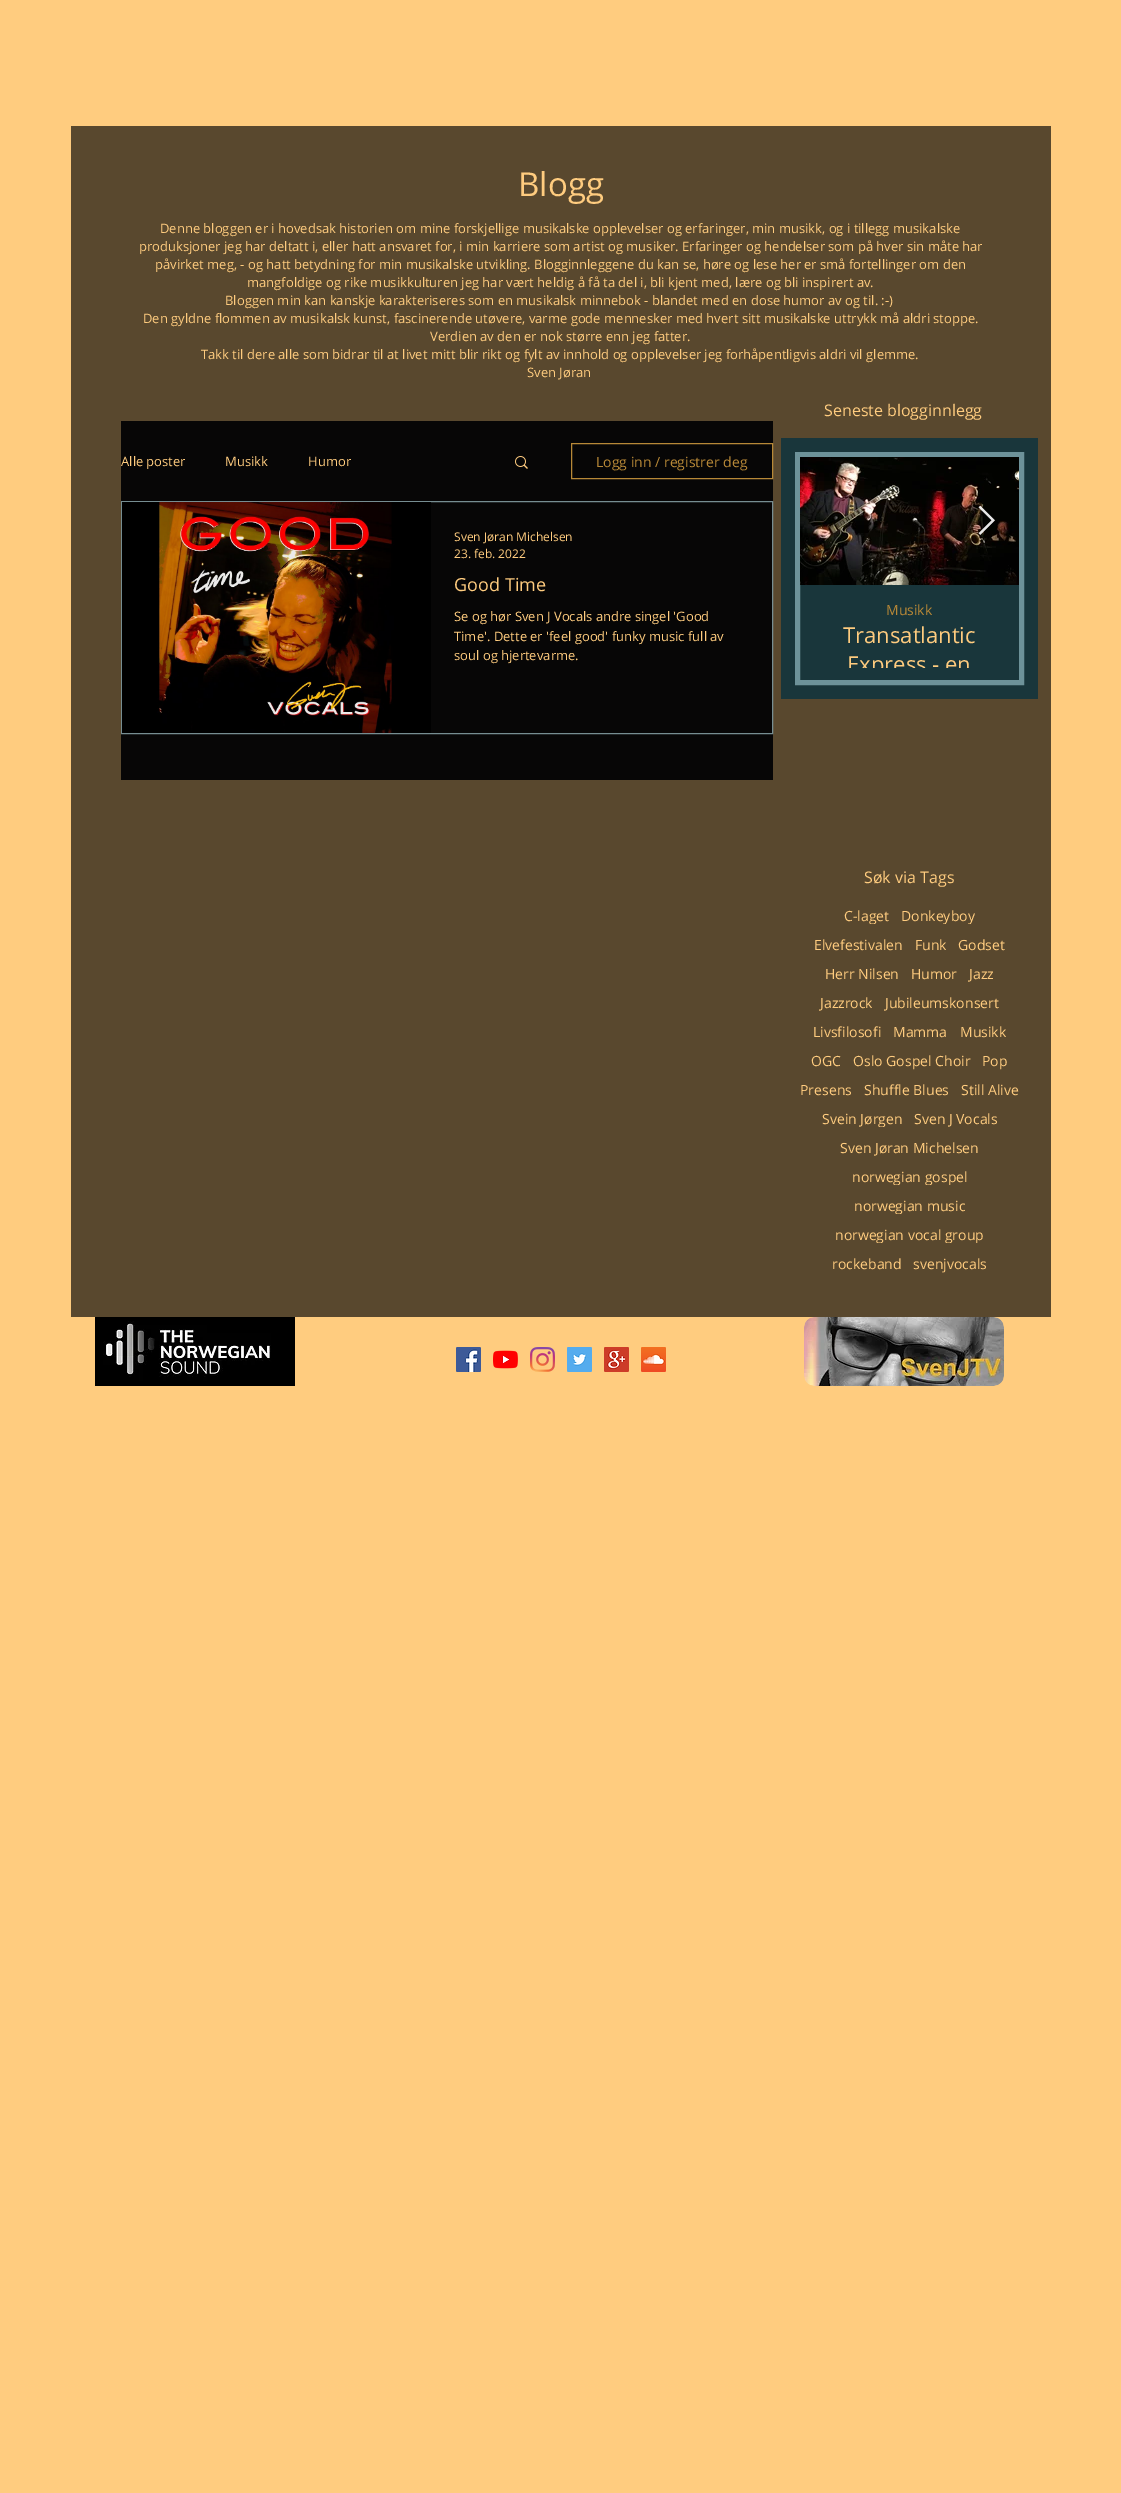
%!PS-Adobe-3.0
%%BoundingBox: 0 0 1121 2493
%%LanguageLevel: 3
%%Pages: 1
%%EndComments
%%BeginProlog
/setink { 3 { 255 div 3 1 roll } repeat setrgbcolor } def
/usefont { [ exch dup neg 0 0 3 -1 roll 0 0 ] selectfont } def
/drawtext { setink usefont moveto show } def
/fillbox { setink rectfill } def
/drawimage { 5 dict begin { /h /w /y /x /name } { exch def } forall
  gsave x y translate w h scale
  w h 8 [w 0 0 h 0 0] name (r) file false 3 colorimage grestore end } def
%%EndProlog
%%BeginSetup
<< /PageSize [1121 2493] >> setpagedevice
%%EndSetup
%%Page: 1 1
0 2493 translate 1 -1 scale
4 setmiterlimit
0 0 1121 2493 255 204 127 fillbox
71 126 980 1191 89 72 46 fillbox
(Blogg) 518 196 /OpenSans-Regular 33 255 204 127 drawtext
(Denne bloggen er i hovedsak historien om mine forskjellige musikalske opplevelser og erfaringer, min musikk, og i tillegg musikalske) 160 233 /OpenSans-Regular 13 255 204 127 drawtext
(produksjoner jeg har deltatt i, eller hatt ansvaret for, i min karriere som artist og musiker. Erfaringer og hendelser som på hver sin måte har) 139 251 /OpenSans-Regular 13 255 204 127 drawtext
(påvirket meg, - og hatt betydning for min musikalske utvikling. Blogginnleggene du kan se, høre og lese her er små fortellinger om den) 155 269 /OpenSans-Regular 13 255 204 127 drawtext
(mangfoldige og rike musikkulturen jeg har vært heldig å få ta del i, bli kjent med, lære og bli inspirert av.) 247 287 /OpenSans-Regular 13 255 204 127 drawtext
(Bloggen min kan kanskje karakteriseres som en musikalsk minnebok - blandet med en dose humor av og til. :-\)) 225 305 /OpenSans-Regular 13 255 204 127 drawtext
(Den gyldne flommen av musikalsk kunst, fascinerende utøvere, varme gode mennesker med hvert sitt musikalske uttrykk må aldri stoppe.) 143 323 /OpenSans-Regular 13 255 204 127 drawtext
(Verdien av den er nok større enn jeg fatter.) 430 341 /OpenSans-Regular 13 255 204 127 drawtext
(Takk til dere alle som bidrar til at livet mitt blir rikt og fylt av innhold og opplevelser jeg forhåpentligvis aldri vil glemme.) 201 359 /OpenSans-Regular 13 255 204 127 drawtext
(Sven Jøran) 527 377 /OpenSans-Regular 13 255 204 127 drawtext
(Seneste blogginnlegg) 824 416 /OpenSans-Regular 16 255 204 127 drawtext
121 421 652 359 7 6 6 fillbox
(Alle poster) 121 466 /OpenSans-Regular 13 255 204 127 drawtext
(Musikk) 225 466 /OpenSans-Regular 13 255 204 127 drawtext
(Humor) 308 466 /OpenSans-Regular 13 255 204 127 drawtext
(assets/img1.rgb) 515 456 13 13 drawimage
183 136 55 setink
571.5 443.5 201 35 rectstroke
(Logg inn / registrer deg) 596 467 /OpenSans-Regular 14 183 136 55 drawtext
118 141 145 setink
121.5 501.5 651 232 rectstroke
(assets/img2.rgb) 122 502 309 231 drawimage
(Sven Jøran Michelsen) 454 541 /OpenSans-Regular 12 255 204 127 drawtext
(23. feb. 2022) 454 558 /OpenSans-Regular 12 255 204 127 drawtext
(Good Time) 454 591 /OpenSans-Regular 18 255 204 127 drawtext
(Se og hør Sven J Vocals andre singel 'Good) 454 621 /OpenSans-Regular 13 255 204 127 drawtext
(Time'. Dette er 'feel good' funky music full av) 454 641 /OpenSans-Regular 13 255 204 127 drawtext
(soul og hjertevarme.) 454 660 /OpenSans-Regular 13 255 204 127 drawtext
781 438 257 261 25 54 59 fillbox
109 146 153 setink
5 setlinewidth
797.5 454.5 224 228 rectstroke
(assets/img4.rgb) 800 457 219 128 drawimage
(assets/img3.rgb) 978 506 17 29 drawimage
(Musikk) 886 615 /OpenSans-Regular 14 183 136 55 drawtext
(Transatlantic) 843 643 /OpenSans-Regular 22 255 204 127 drawtext
gsave
824 620 171 48 rectclip
(Express - en) 847 672 /OpenSans-Regular 22 255 204 127 drawtext
grestore
(Søk via Tags) 864 883 /OpenSans-Regular 16 255 204 127 drawtext
gsave
844 907 45 17 rectclip
(C-laget) 844 921 /OpenSans-Regular 14 255 204 127 drawtext
grestore
gsave
901 907 74 17 rectclip
(Donkeyboy) 901 921 /OpenSans-Regular 14 255 204 127 drawtext
grestore
(Elvefestivalen) 814 950 /OpenSans-Regular 14 255 204 127 drawtext
(Funk) 915 950 /OpenSans-Regular 14 255 204 127 drawtext
(Godset) 958 950 /OpenSans-Regular 14 255 204 127 drawtext
(Herr Nilsen) 825 979 /OpenSans-Regular 14 255 204 127 drawtext
(Humor) 911 979 /OpenSans-Regular 14 255 204 127 drawtext
(Jazz) 969 979 /OpenSans-Regular 14 255 204 127 drawtext
(Jazzrock) 820 1008 /OpenSans-Regular 14 255 204 127 drawtext
(Jubileumskonsert) 885 1008 /OpenSans-Regular 14 255 204 127 drawtext
(Livsfilosofi) 813 1037 /OpenSans-Regular 14 255 204 127 drawtext
(Mamma) 893 1037 /OpenSans-Regular 14 255 204 127 drawtext
(Musikk) 960 1037 /OpenSans-Regular 14 255 204 127 drawtext
(OGC) 811 1066 /OpenSans-Regular 14 255 204 127 drawtext
(Oslo Gospel Choir) 853 1066 /OpenSans-Regular 14 255 204 127 drawtext
(Pop) 982 1066 /OpenSans-Regular 14 255 204 127 drawtext
(Presens) 800 1095 /OpenSans-Regular 14 255 204 127 drawtext
(Shuffle Blues) 864 1095 /OpenSans-Regular 14 255 204 127 drawtext
(Still Alive) 961 1095 /OpenSans-Regular 14 255 204 127 drawtext
gsave
822 1110 80 17 rectclip
(Svein Jørgen) 822 1124 /OpenSans-Regular 14 255 204 127 drawtext
grestore
(Sven J Vocals) 914 1124 /OpenSans-Regular 14 255 204 127 drawtext
(Sven Jøran Michelsen) 840 1153 /OpenSans-Regular 14 255 204 127 drawtext
gsave
852 1168 115 17 rectclip
(norwegian gospel) 852 1182 /OpenSans-Regular 14 255 204 127 drawtext
grestore
gsave
854 1197 111 17 rectclip
(norwegian music) 854 1211 /OpenSans-Regular 14 255 204 127 drawtext
grestore
gsave
835 1226 149 17 rectclip
(norwegian vocal group) 835 1240 /OpenSans-Regular 14 255 204 127 drawtext
grestore
(rockeband) 832 1269 /OpenSans-Regular 14 255 204 127 drawtext
(svenjvocals) 913 1269 /OpenSans-Regular 14 255 204 127 drawtext
(assets/img5.rgb) 95 1317 200 69 drawimage
(assets/img6.rgb) 456 1347 25 25 drawimage
(assets/img7.rgb) 493 1350 25 19 drawimage
(assets/img8.rgb) 530 1347 25 25 drawimage
(assets/img9.rgb) 567 1347 25 25 drawimage
(assets/img10.rgb) 604 1347 25 25 drawimage
(assets/img11.rgb) 641 1347 25 25 drawimage
(assets/img12.rgb) 804 1317 200 69 drawimage
showpage
%%EOF
